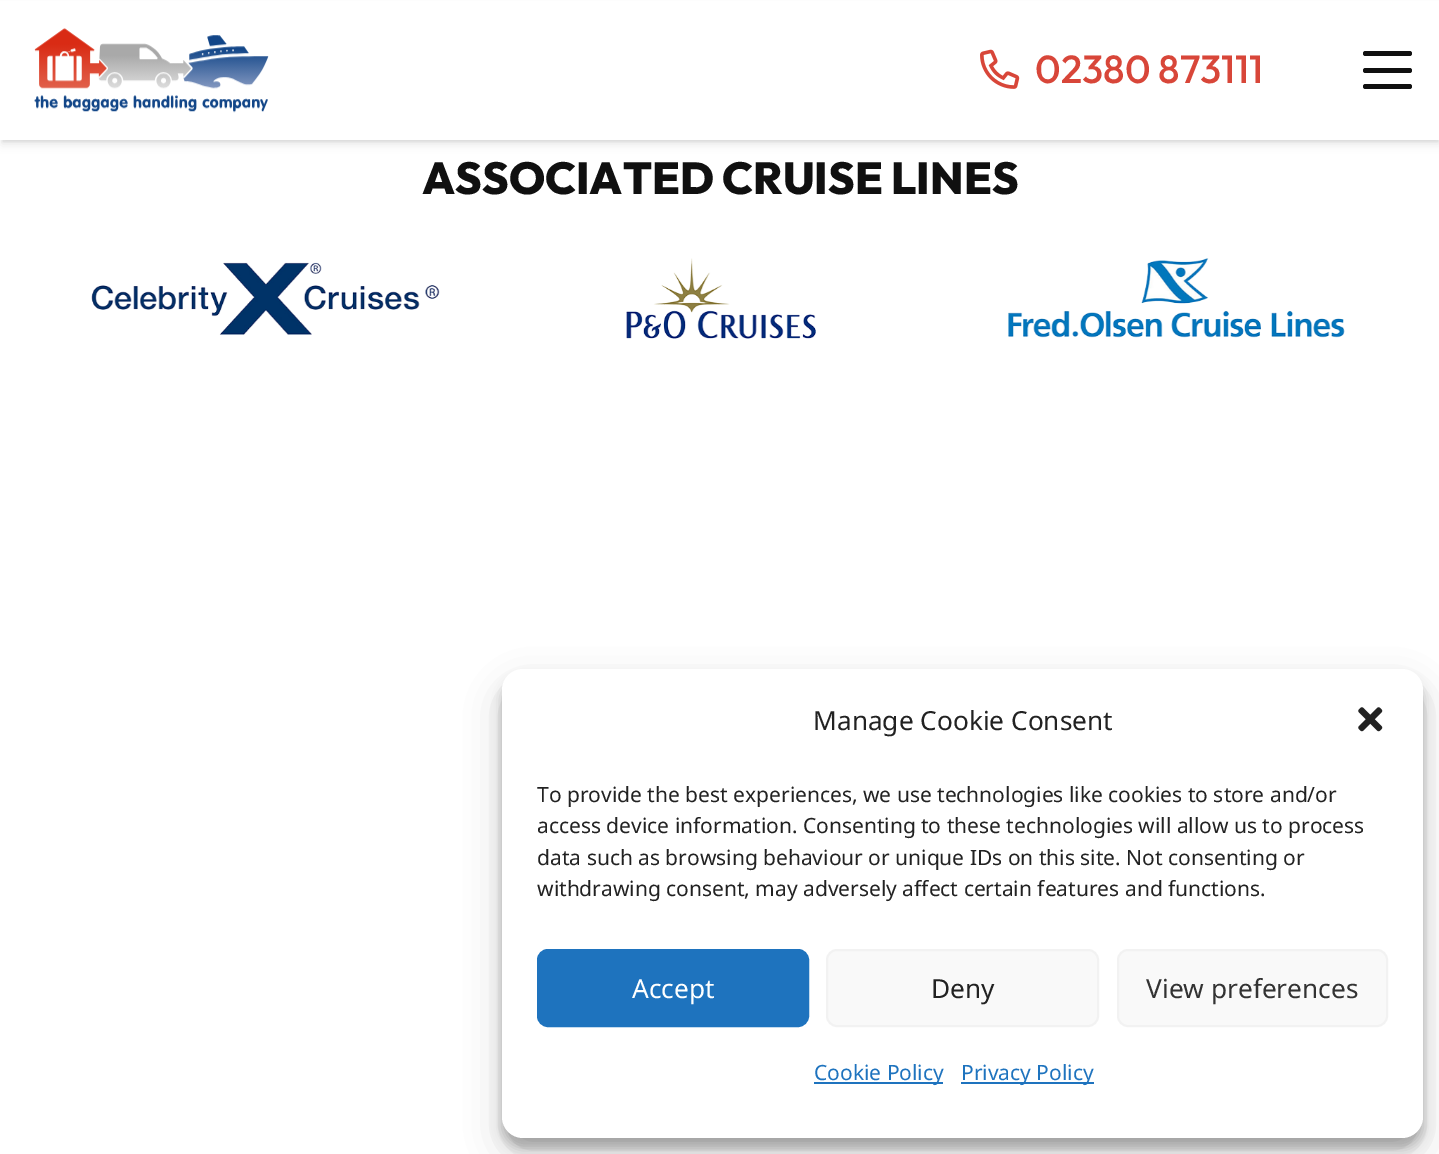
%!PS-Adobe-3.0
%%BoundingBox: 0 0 1439 1154
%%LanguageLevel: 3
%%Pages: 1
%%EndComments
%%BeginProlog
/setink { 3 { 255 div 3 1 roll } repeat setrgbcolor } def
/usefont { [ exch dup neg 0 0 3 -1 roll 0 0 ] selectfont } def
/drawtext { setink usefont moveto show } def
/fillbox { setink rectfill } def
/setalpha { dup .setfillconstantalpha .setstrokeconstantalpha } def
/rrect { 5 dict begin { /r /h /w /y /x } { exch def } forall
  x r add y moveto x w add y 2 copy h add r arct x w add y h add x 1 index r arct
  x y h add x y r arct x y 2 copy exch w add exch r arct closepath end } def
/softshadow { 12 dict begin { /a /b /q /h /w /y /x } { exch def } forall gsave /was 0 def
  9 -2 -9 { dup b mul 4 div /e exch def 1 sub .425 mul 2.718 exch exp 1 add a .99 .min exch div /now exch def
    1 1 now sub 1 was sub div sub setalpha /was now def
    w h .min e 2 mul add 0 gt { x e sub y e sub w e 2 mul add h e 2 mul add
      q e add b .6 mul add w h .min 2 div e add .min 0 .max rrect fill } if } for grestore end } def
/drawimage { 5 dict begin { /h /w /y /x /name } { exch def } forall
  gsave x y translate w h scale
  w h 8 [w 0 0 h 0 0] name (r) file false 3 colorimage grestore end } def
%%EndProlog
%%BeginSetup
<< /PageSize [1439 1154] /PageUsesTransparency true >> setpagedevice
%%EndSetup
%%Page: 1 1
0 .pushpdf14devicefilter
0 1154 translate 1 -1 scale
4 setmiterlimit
0 0 1439 1154 255 255 255 fillbox
0 0 0 setink
2 5 1437 137 0 1 0.05 softshadow
2 7 1437 137 0 4.5 0.1 softshadow
0 1 1439 139 255 255 255 fillbox
(assets/img1.rgb) 34 28 235 85 drawimage
(assets/img2.rgb) 980 49 40 40 drawimage
(02380 873111) 1035 83 /Outfit-Medium 39.25 216 70 57 drawtext
16 16 16 setink
1363 68 49 5 2.5 rrect fill
1363 51 49 5 2.5 rrect fill
1363 84 49 5 2.5 rrect fill
(ASSOCIATED CRUISE LINES) 422 194 /Outfit-ExtraBold 44.75 16 16 16 drawtext
(assets/img3.rgb) 91 262 349 73 drawimage
(assets/img4.rgb) 626 258 190 81 drawimage
(assets/img5.rgb) 1008 258 337 80 drawimage
0 0 0 setink
502 679 921 469 21 5 0.23 softshadow
502 686 921 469 21 17.5 0.19 softshadow
255 255 255 setink
502 669 921 469 21 rrect fill
(Manage Cookie Consent) 813 730 /NotoSans-Regular 26.25 34 34 34 drawtext
(assets/img6.rgb) 1358 707 25 25 drawimage
(To provide the best experiences, we use technologies like cookies to store and/or) 537 802 /NotoSans-Regular 21 34 34 34 drawtext
(access device information. Consenting to these technologies will allow us to process) 537 833 /NotoSans-Regular 21 34 34 34 drawtext
(data such as browsing behaviour or unique IDs on this site. Not consenting or) 537 865 /NotoSans-Regular 21 34 34 34 drawtext
(withdrawing consent, may adversely affect certain features and functions.) 537 896 /NotoSans-Regular 21 34 34 34 drawtext
30 115 190 setink
538 950 270 76 10 rrect gsave fill grestore
2 setlinewidth
stroke
(Accept) 632 998 /NotoSans-Regular 26.25 255 255 255 drawtext
249 249 249 setink
827 950 271 76 10 rrect gsave fill grestore
242 242 242 setink
stroke
(Deny) 931 998 /NotoSans-Regular 26.25 34 34 34 drawtext
249 249 249 setink
1118 950 269 76 10 rrect gsave fill grestore
242 242 242 setink
stroke
(View preferences) 1146 998 /NotoSans-Regular 26.25 51 51 51 drawtext
814 1082 129 2 30 115 190 fillbox
(Cookie Policy) 814 1080 /NotoSans-Regular 21 30 115 190 drawtext
961 1082 133 2 30 115 190 fillbox
(Privacy Policy) 961 1080 /NotoSans-Regular 21 30 115 190 drawtext
.poppdf14devicefilter showpage
%%EOF
